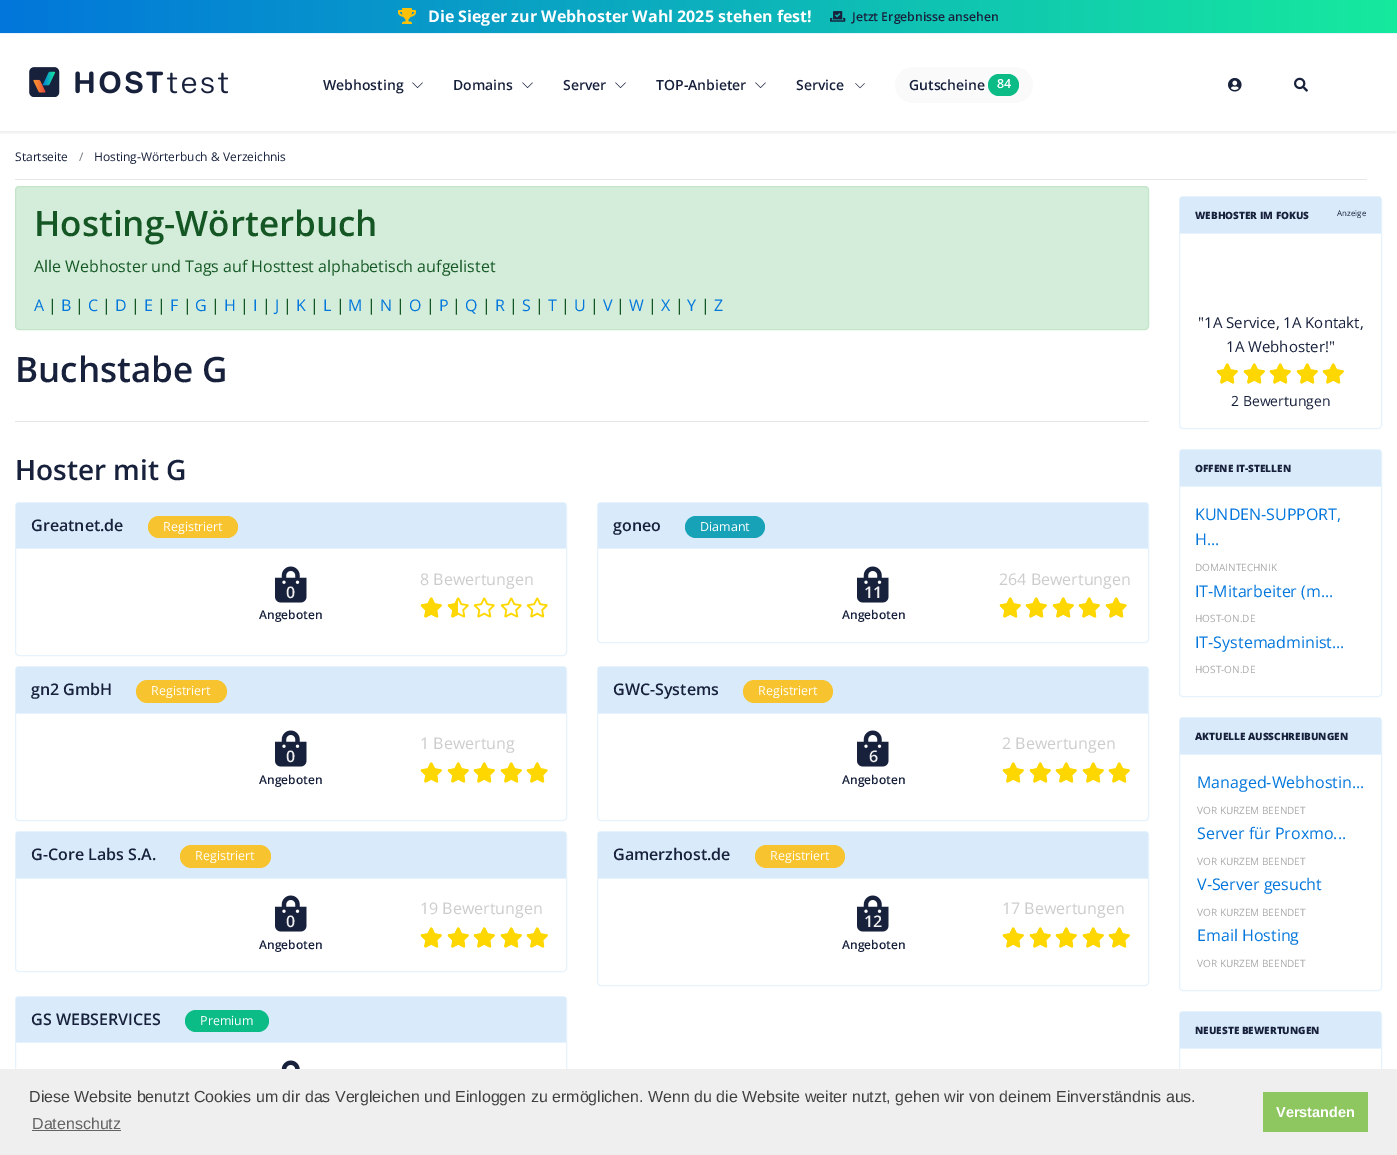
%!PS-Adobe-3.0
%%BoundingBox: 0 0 1397 1155
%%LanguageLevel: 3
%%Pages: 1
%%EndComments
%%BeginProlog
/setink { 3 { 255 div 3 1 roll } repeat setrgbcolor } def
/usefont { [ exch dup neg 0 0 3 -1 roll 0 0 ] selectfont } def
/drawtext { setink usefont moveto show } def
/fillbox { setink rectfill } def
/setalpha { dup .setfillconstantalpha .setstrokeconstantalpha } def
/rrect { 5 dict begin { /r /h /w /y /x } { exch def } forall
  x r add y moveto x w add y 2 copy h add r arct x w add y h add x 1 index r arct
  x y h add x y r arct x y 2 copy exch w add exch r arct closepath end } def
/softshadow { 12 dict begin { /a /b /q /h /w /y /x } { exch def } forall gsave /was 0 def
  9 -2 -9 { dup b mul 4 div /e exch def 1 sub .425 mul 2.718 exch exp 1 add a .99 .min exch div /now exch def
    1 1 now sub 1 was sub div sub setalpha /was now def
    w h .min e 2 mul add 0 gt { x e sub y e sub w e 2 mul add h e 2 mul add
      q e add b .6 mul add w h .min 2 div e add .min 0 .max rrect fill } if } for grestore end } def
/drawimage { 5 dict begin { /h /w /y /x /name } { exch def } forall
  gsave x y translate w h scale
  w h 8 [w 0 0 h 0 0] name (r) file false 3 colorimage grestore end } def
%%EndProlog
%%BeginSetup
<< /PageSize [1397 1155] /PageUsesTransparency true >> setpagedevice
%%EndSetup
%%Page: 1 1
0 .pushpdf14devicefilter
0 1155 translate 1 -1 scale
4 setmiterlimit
0 0 1397 1155 255 255 255 fillbox
gsave 0 0 moveto 1397 0 lineto 1397 33 lineto 0 33 lineto closepath clip newpath
<< /ShadingType 2 /ColorSpace /DeviceRGB /Coords [0 17 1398 16] /Extend [true true] /Function << /FunctionType 2 /Domain [0 1] /C0 [0.008 0.463 0.859] /C1 [0.086 0.918 0.62] /N 1 >> >> shfill grestore
0 33 1397 1 230 242 252 fillbox
(assets/img1.rgb) 398 8 18 16 drawimage
(Die Sieger zur Webhoster Wahl 2025 stehen fest!) 428 22 /OpenSans-Bold 16 255 255 255 drawtext
(assets/img2.rgb) 830 11 16 11 drawimage
(Jetzt Ergebnisse ansehen) 852 21 /OpenSans-SemiBold 12.25 24 33 60 drawtext
gsave
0 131 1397 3 rectclip
0 0 0 setink
0 36 1397 97 0 2 0.07 softshadow
grestore
(assets/img3.rgb) 29 67 199 30 drawimage
(Webhosting) 323 90 /OpenSans-SemiBold 14 24 33 60 drawtext
(assets/img4.rgb) 412 82 11 6 drawimage
(Domains) 453 90 /OpenSans-SemiBold 14 24 33 60 drawtext
(assets/img4.rgb) 522 82 11 6 drawimage
(Server) 563 90 /OpenSans-SemiBold 14 24 33 60 drawtext
(assets/img4.rgb) 615 82 11 6 drawimage
(TOP-Anbieter) 656 90 /OpenSans-SemiBold 14 24 33 60 drawtext
(assets/img4.rgb) 755 82 11 6 drawimage
(Service) 796 90 /OpenSans-SemiBold 14 24 33 60 drawtext
(assets/img5.rgb) 855 83 10 6 drawimage
250 250 250 setink
895 67 138 36 18 rrect fill
(Gutscheine) 909 90 /OpenSans-SemiBold 14 24 33 60 drawtext
12 188 135 setink
988 74 31 22 11 rrect fill
(84) 997 88 /OpenSans-SemiBold 12.5 255 255 255 drawtext
(assets/img6.rgb) 1228 78 14 14 drawimage
(assets/img7.rgb) 1294 77 14 15 drawimage
(Startseite) 15 161 /OpenSans-Regular 12 24 33 60 drawtext
(/) 79 161 /OpenSans-Regular 12 108 117 125 drawtext
(Hosting-Wörterbuch & Verzeichnis) 94 161 /OpenSans-Regular 12 24 33 60 drawtext
15 179 1352 1 230 230 230 fillbox
212 237 218 setink
15.5 186.5 1133 143 3.5 rrect gsave fill grestore
195 230 203 setink
stroke
(Hosting-Wörterbuch) 34 236 /OpenSans-SemiBold 35 21 87 36 drawtext
(Alle Webhoster und Tags auf Hosttest alphabetisch aufgelistet) 34 272 /OpenSans-Regular 16 21 87 36 drawtext
(A) 34 311 /OpenSans-Regular 16 2 118 219 drawtext
(|) 48 311 /OpenSans-Regular 16 21 87 36 drawtext
(B) 61 311 /OpenSans-Regular 16 2 118 219 drawtext
(|) 75 311 /OpenSans-Regular 16 21 87 36 drawtext
(C) 88 311 /OpenSans-Regular 16 2 118 219 drawtext
(|) 102 311 /OpenSans-Regular 16 21 87 36 drawtext
(D) 115 311 /OpenSans-Regular 16 2 118 219 drawtext
(|) 131 311 /OpenSans-Regular 16 21 87 36 drawtext
(E) 144 311 /OpenSans-Regular 16 2 118 219 drawtext
(|) 157 311 /OpenSans-Regular 16 21 87 36 drawtext
(F) 170 311 /OpenSans-Regular 16 2 118 219 drawtext
(|) 183 311 /OpenSans-Regular 16 21 87 36 drawtext
(G) 195 311 /OpenSans-Regular 16 2 118 219 drawtext
(|) 211 311 /OpenSans-Regular 16 21 87 36 drawtext
(H) 224 311 /OpenSans-Regular 16 2 118 219 drawtext
(|) 240 311 /OpenSans-Regular 16 21 87 36 drawtext
(I) 253 311 /OpenSans-Regular 16 2 118 219 drawtext
(|) 262 311 /OpenSans-Regular 16 21 87 36 drawtext
(J) 275 311 /OpenSans-Regular 16 2 118 219 drawtext
(|) 283 311 /OpenSans-Regular 16 21 87 36 drawtext
(K) 296 311 /OpenSans-Regular 16 2 118 219 drawtext
(|) 310 311 /OpenSans-Regular 16 21 87 36 drawtext
(L) 323 311 /OpenSans-Regular 16 2 118 219 drawtext
(|) 336 311 /OpenSans-Regular 16 21 87 36 drawtext
(M) 348 311 /OpenSans-Regular 16 2 118 219 drawtext
(|) 367 311 /OpenSans-Regular 16 21 87 36 drawtext
(N) 380 311 /OpenSans-Regular 16 2 118 219 drawtext
(|) 396 311 /OpenSans-Regular 16 21 87 36 drawtext
(O) 409 311 /OpenSans-Regular 16 2 118 219 drawtext
(|) 426 311 /OpenSans-Regular 16 21 87 36 drawtext
(P) 439 311 /OpenSans-Regular 16 2 118 219 drawtext
(|) 452 311 /OpenSans-Regular 16 21 87 36 drawtext
(Q) 465 311 /OpenSans-Regular 16 2 118 219 drawtext
(|) 482 311 /OpenSans-Regular 16 21 87 36 drawtext
(R) 495 311 /OpenSans-Regular 16 2 118 219 drawtext
(|) 509 311 /OpenSans-Regular 16 21 87 36 drawtext
(S) 522 311 /OpenSans-Regular 16 2 118 219 drawtext
(|) 535 311 /OpenSans-Regular 16 21 87 36 drawtext
(T) 548 311 /OpenSans-Regular 16 2 118 219 drawtext
(|) 561 311 /OpenSans-Regular 16 21 87 36 drawtext
(U) 574 311 /OpenSans-Regular 16 2 118 219 drawtext
(|) 590 311 /OpenSans-Regular 16 21 87 36 drawtext
(V) 603 311 /OpenSans-Regular 16 2 118 219 drawtext
(|) 616 311 /OpenSans-Regular 16 21 87 36 drawtext
(W) 629 311 /OpenSans-Regular 16 2 118 219 drawtext
(|) 648 311 /OpenSans-Regular 16 21 87 36 drawtext
(X) 661 311 /OpenSans-Regular 16 2 118 219 drawtext
(|) 675 311 /OpenSans-Regular 16 21 87 36 drawtext
(Y) 687 311 /OpenSans-Regular 16 2 118 219 drawtext
(|) 701 311 /OpenSans-Regular 16 21 87 36 drawtext
(Z) 714 311 /OpenSans-Regular 16 2 118 219 drawtext
(Buchstabe G) 15 382 /OpenSans-SemiBold 35 24 33 60 drawtext
15 421 1134 1 230 230 230 fillbox
(Hoster mit G) 15 480 /OpenSans-SemiBold 28 24 33 60 drawtext
230 242 252 setink
15.5 502.5 551 153 3.5 rrect stroke
217 235 250 setink
18.5 503 moveto 563.5 503 lineto 565 503 566 504 566 505.5 curveto 566 549 lineto 16 549 lineto 16 505.5 lineto 16 504 17 503 18.5 503 curveto closepath fill
16 548 550 1 230 242 252 fillbox
(Greatnet.de) 31 531 /OpenSans-SemiBold 16 24 33 60 drawtext
247 195 46 setink
148 516 90 22 11 rrect fill
(Registriert) 163 531 /OpenSans-Regular 12.5 255 255 255 drawtext
(8 Bewertungen) 420 585 /OpenSans-Regular 16 204 204 204 drawtext
(assets/img8.rgb) 420 597 22 21 drawimage
(assets/img9.rgb) 447 597 11 21 drawimage
(assets/img10.rgb) 420 597 22 21 drawimage
(assets/img11.rgb) 447 597 22 21 drawimage
(assets/img12.rgb) 473 597 22 21 drawimage
(assets/img12.rgb) 500 597 22 21 drawimage
(assets/img12.rgb) 526 597 22 21 drawimage
(assets/img13.rgb) 275 566 32 37 drawimage
(0) 286 598 /OpenSans-SemiBold 16 240 240 240 drawtext
(Angeboten) 259 619 /OpenSans-SemiBold 12 24 33 60 drawtext
230 242 252 setink
597.5 502.5 551 140 3.5 rrect stroke
217 235 250 setink
600.5 503 moveto 1145.5 503 lineto 1147 503 1148 504 1148 505.5 curveto 1148 549 lineto 598 549 lineto 598 505.5 lineto 598 504 599 503 600.5 503 curveto closepath fill
598 548 550 1 230 242 252 fillbox
(goneo) 613 531 /OpenSans-SemiBold 16 24 33 60 drawtext
23 162 184 setink
685 516 80 22 11 rrect fill
(Diamant) 700 531 /OpenSans-Regular 12.5 255 255 255 drawtext
(264 Bewertungen) 999 585 /OpenSans-Regular 16 204 204 204 drawtext
(assets/img8.rgb) 999 597 22 21 drawimage
(assets/img8.rgb) 1025 597 22 21 drawimage
(assets/img8.rgb) 1052 597 22 21 drawimage
(assets/img8.rgb) 1078 597 22 21 drawimage
(assets/img14.rgb) 1105 597 20 21 drawimage
(assets/img10.rgb) 999 597 22 21 drawimage
(assets/img10.rgb) 1025 597 22 21 drawimage
(assets/img10.rgb) 1052 597 22 21 drawimage
(assets/img10.rgb) 1078 597 22 21 drawimage
(assets/img15.rgb) 1105 597 22 21 drawimage
(assets/img13.rgb) 857 566 32 37 drawimage
(11) 864 598 /OpenSans-SemiBold 16 240 240 240 drawtext
(Angeboten) 842 619 /OpenSans-SemiBold 12 24 33 60 drawtext
230 242 252 setink
15.5 666.5 551 154 3.5 rrect stroke
217 235 250 setink
18.5 667 moveto 563.5 667 lineto 565 667 566 668 566 669.5 curveto 566 714 lineto 16 714 lineto 16 669.5 lineto 16 668 17 667 18.5 667 curveto closepath fill
16 713 550 1 230 242 252 fillbox
(gn2 GmbH) 31 695 /OpenSans-SemiBold 16 24 33 60 drawtext
247 195 46 setink
136 680 91 23 11.5 rrect fill
(Registriert) 151 695 /OpenSans-Regular 12.5 255 255 255 drawtext
(1 Bewertung) 420 749 /OpenSans-Regular 16 204 204 204 drawtext
(assets/img8.rgb) 420 762 22 21 drawimage
(assets/img8.rgb) 447 762 22 21 drawimage
(assets/img8.rgb) 473 762 22 21 drawimage
(assets/img8.rgb) 500 762 22 21 drawimage
(assets/img16.rgb) 526 762 19 21 drawimage
(assets/img10.rgb) 420 762 22 21 drawimage
(assets/img10.rgb) 447 762 22 21 drawimage
(assets/img10.rgb) 473 762 22 21 drawimage
(assets/img10.rgb) 500 762 22 21 drawimage
(assets/img17.rgb) 526 762 22 21 drawimage
(assets/img13.rgb) 275 730 32 37 drawimage
(0) 286 762 /OpenSans-SemiBold 16 240 240 240 drawtext
(Angeboten) 259 784 /OpenSans-SemiBold 12 24 33 60 drawtext
230 242 252 setink
597.5 666.5 551 154 3.5 rrect stroke
217 235 250 setink
600.5 667 moveto 1145.5 667 lineto 1147 667 1148 668 1148 669.5 curveto 1148 714 lineto 598 714 lineto 598 669.5 lineto 598 668 599 667 600.5 667 curveto closepath fill
598 713 550 1 230 242 252 fillbox
(GWC-Systems) 613 695 /OpenSans-SemiBold 16 24 33 60 drawtext
247 195 46 setink
743 680 90 23 11.5 rrect fill
(Registriert) 758 695 /OpenSans-Regular 12.5 255 255 255 drawtext
(2 Bewertungen) 1002 749 /OpenSans-Regular 16 204 204 204 drawtext
(assets/img8.rgb) 1002 762 22 21 drawimage
(assets/img8.rgb) 1029 762 22 21 drawimage
(assets/img8.rgb) 1055 762 22 21 drawimage
(assets/img8.rgb) 1082 762 22 21 drawimage
(assets/img8.rgb) 1108 762 22 21 drawimage
(assets/img10.rgb) 1002 762 22 21 drawimage
(assets/img10.rgb) 1029 762 22 21 drawimage
(assets/img10.rgb) 1055 762 22 21 drawimage
(assets/img10.rgb) 1082 762 22 21 drawimage
(assets/img10.rgb) 1108 762 22 21 drawimage
(assets/img13.rgb) 857 730 32 37 drawimage
(6) 869 762 /OpenSans-SemiBold 16 240 240 240 drawtext
(Angeboten) 842 784 /OpenSans-SemiBold 12 24 33 60 drawtext
230 242 252 setink
15.5 831.5 551 140 3.5 rrect stroke
217 235 250 setink
18.5 832 moveto 563.5 832 lineto 565 832 566 833 566 834.5 curveto 566 879 lineto 16 879 lineto 16 834.5 lineto 16 833 17 832 18.5 832 curveto closepath fill
16 878 550 1 230 242 252 fillbox
(G-Core Labs S.A.) 31 860 /OpenSans-SemiBold 16 24 33 60 drawtext
247 195 46 setink
180 845 91 23 11.5 rrect fill
(Registriert) 195 860 /OpenSans-Regular 12.5 255 255 255 drawtext
(19 Bewertungen) 420 914 /OpenSans-Regular 16 204 204 204 drawtext
(assets/img8.rgb) 420 927 22 21 drawimage
(assets/img8.rgb) 447 927 22 21 drawimage
(assets/img8.rgb) 473 927 22 21 drawimage
(assets/img8.rgb) 500 927 22 21 drawimage
(assets/img8.rgb) 526 927 22 21 drawimage
(assets/img10.rgb) 420 927 22 21 drawimage
(assets/img10.rgb) 447 927 22 21 drawimage
(assets/img10.rgb) 473 927 22 21 drawimage
(assets/img10.rgb) 500 927 22 21 drawimage
(assets/img10.rgb) 526 927 22 21 drawimage
(assets/img13.rgb) 275 895 32 37 drawimage
(0) 286 927 /OpenSans-SemiBold 16 240 240 240 drawtext
(Angeboten) 259 949 /OpenSans-SemiBold 12 24 33 60 drawtext
230 242 252 setink
597.5 831.5 551 154 3.5 rrect stroke
217 235 250 setink
600.5 832 moveto 1145.5 832 lineto 1147 832 1148 833 1148 834.5 curveto 1148 879 lineto 598 879 lineto 598 834.5 lineto 598 833 599 832 600.5 832 curveto closepath fill
598 878 550 1 230 242 252 fillbox
(Gamerzhost.de) 613 860 /OpenSans-SemiBold 16 24 33 60 drawtext
247 195 46 setink
755 845 90 23 11.5 rrect fill
(Registriert) 770 860 /OpenSans-Regular 12.5 255 255 255 drawtext
(17 Bewertungen) 1002 914 /OpenSans-Regular 16 204 204 204 drawtext
(assets/img8.rgb) 1002 927 22 21 drawimage
(assets/img8.rgb) 1029 927 22 21 drawimage
(assets/img8.rgb) 1055 927 22 21 drawimage
(assets/img8.rgb) 1082 927 22 21 drawimage
(assets/img8.rgb) 1108 927 22 21 drawimage
(assets/img10.rgb) 1002 927 22 21 drawimage
(assets/img10.rgb) 1029 927 22 21 drawimage
(assets/img10.rgb) 1055 927 22 21 drawimage
(assets/img10.rgb) 1082 927 22 21 drawimage
(assets/img10.rgb) 1108 927 22 21 drawimage
(assets/img13.rgb) 857 895 32 37 drawimage
(12) 864 927 /OpenSans-SemiBold 16 240 240 240 drawtext
(Angeboten) 842 949 /OpenSans-SemiBold 12 24 33 60 drawtext
230 242 252 setink
15.5 996.5 551 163 3.5 rrect stroke
217 235 250 setink
18.5 997 moveto 563.5 997 lineto 565 997 566 998 566 999.5 curveto 566 1043 lineto 16 1043 lineto 16 999.5 lineto 16 998 17 997 18.5 997 curveto closepath fill
16 1042 550 1 230 242 252 fillbox
(GS WEBSERVICES) 31 1025 /OpenSans-SemiBold 16 24 33 60 drawtext
12 188 135 setink
185 1010 84 22 11 rrect fill
(Premium) 200 1025 /OpenSans-Regular 12.5 255 255 255 drawtext
(assets/img18.rgb) 281 1060 19 9 drawimage
230 242 252 setink
1179.5 196.5 202 232 3.5 rrect stroke
217 235 250 setink
1182.5 197 moveto 1378.5 197 lineto 1380 197 1381 198 1381 199.5 curveto 1381 234 lineto 1180 234 lineto 1180 199.5 lineto 1180 198 1181 197 1182.5 197 curveto closepath fill
1180 233 201 1 230 242 252 fillbox
(WEBHOSTER IM FOKUS) 1195 219 /OpenSans-ExtraBold 10 24 33 60 drawtext
(Anzeige) 1337 216 /OpenSans-Regular 8 24 33 60 drawtext
("1A Service, 1A Kontakt,) 1198 328 /OpenSans-Regular 15 24 33 60 drawtext
(1A Webhoster!") 1226 352 /OpenSans-Regular 15 24 33 60 drawtext
(assets/img8.rgb) 1216 363 22 21 drawimage
(assets/img8.rgb) 1243 363 22 21 drawimage
(assets/img8.rgb) 1269 363 22 21 drawimage
(assets/img8.rgb) 1296 363 22 21 drawimage
(assets/img8.rgb) 1322 363 22 21 drawimage
(assets/img10.rgb) 1216 363 22 21 drawimage
(assets/img10.rgb) 1243 363 22 21 drawimage
(assets/img10.rgb) 1269 363 22 21 drawimage
(assets/img10.rgb) 1296 363 22 21 drawimage
(assets/img10.rgb) 1322 363 22 21 drawimage
(2 Bewertungen) 1231 406 /OpenSans-Regular 14 24 33 60 drawtext
230 242 252 setink
1179.5 449.5 202 247 3.5 rrect stroke
217 235 250 setink
1182.5 450 moveto 1378.5 450 lineto 1380 450 1381 451 1381 452.5 curveto 1381 487 lineto 1180 487 lineto 1180 452.5 lineto 1180 451 1181 450 1182.5 450 curveto closepath fill
1180 486 201 1 230 242 252 fillbox
(OFFENE IT-STELLEN) 1195 472 /OpenSans-ExtraBold 10 24 33 60 drawtext
(KUNDEN-SUPPORT,) 1195 520 /OpenSans-Regular 16 2 118 219 drawtext
(H...) 1195 545 /OpenSans-Regular 16 2 118 219 drawtext
(DOMAINTECHNIK) 1195 571 /OpenSans-Regular 10 169 169 169 drawtext
(IT-Mitarbeiter \(m...) 1195 597 /OpenSans-Regular 16 2 118 219 drawtext
(HOST-ON.DE) 1195 622 /OpenSans-Regular 10 169 169 169 drawtext
(IT-Systemadminist...) 1195 648 /OpenSans-Regular 16 2 118 219 drawtext
(HOST-ON.DE) 1195 673 /OpenSans-Regular 10 169 169 169 drawtext
230 242 252 setink
1179.5 717.5 202 273 3.5 rrect stroke
217 235 250 setink
1182.5 718 moveto 1378.5 718 lineto 1380 718 1381 719 1381 720.5 curveto 1381 755 lineto 1180 755 lineto 1180 720.5 lineto 1180 719 1181 718 1182.5 718 curveto closepath fill
1180 754 201 1 230 242 252 fillbox
(AKTUELLE AUSSCHREIBUNGEN) 1195 740 /OpenSans-ExtraBold 10 24 33 60 drawtext
(Managed-Webhostin...) 1197 788 /OpenSans-Regular 16 2 118 219 drawtext
(VOR KURZEM BEENDET) 1197 814 /OpenSans-Regular 10 169 169 169 drawtext
(Server für Proxmo...) 1197 839 /OpenSans-Regular 16 2 118 219 drawtext
(VOR KURZEM BEENDET) 1197 865 /OpenSans-Regular 10 169 169 169 drawtext
(V-Server gesucht) 1197 890 /OpenSans-Regular 16 2 118 219 drawtext
(VOR KURZEM BEENDET) 1197 916 /OpenSans-Regular 10 169 169 169 drawtext
(Email Hosting) 1197 941 /OpenSans-Regular 16 2 118 219 drawtext
(VOR KURZEM BEENDET) 1197 967 /OpenSans-Regular 10 169 169 169 drawtext
230 242 252 setink
1179.5 1011.5 202 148 3.5 rrect stroke
217 235 250 setink
1182.5 1012 moveto 1378.5 1012 lineto 1380 1012 1381 1013 1381 1014.5 curveto 1381 1049 lineto 1180 1049 lineto 1180 1014.5 lineto 1180 1013 1181 1012 1182.5 1012 curveto closepath fill
1180 1048 201 1 230 242 252 fillbox
(NEUESTE BEWERTUNGEN) 1195 1034 /OpenSans-ExtraBold 10 24 33 60 drawtext
0 1069 1397 86 239 239 239 fillbox
(Diese Website benutzt Cookies um dir das Vergleichen und Einloggen zu ermöglichen. Wenn du die Website weiter nutzt, gehen wir von deinem Einverständnis aus.) 29 1102 /LiberationSans-Regular 16 64 64 64 drawtext
(Datenschutz) 32 1129 /LiberationSans-Regular 16 99 99 99 drawtext
32 1130 89 1 99 99 99 fillbox
1263 1092 105 40 142 199 96 fillbox
(Verstanden) 1276 1117 /LiberationSans-Bold 14.5 255 255 255 drawtext
.poppdf14devicefilter showpage
%%EOF
